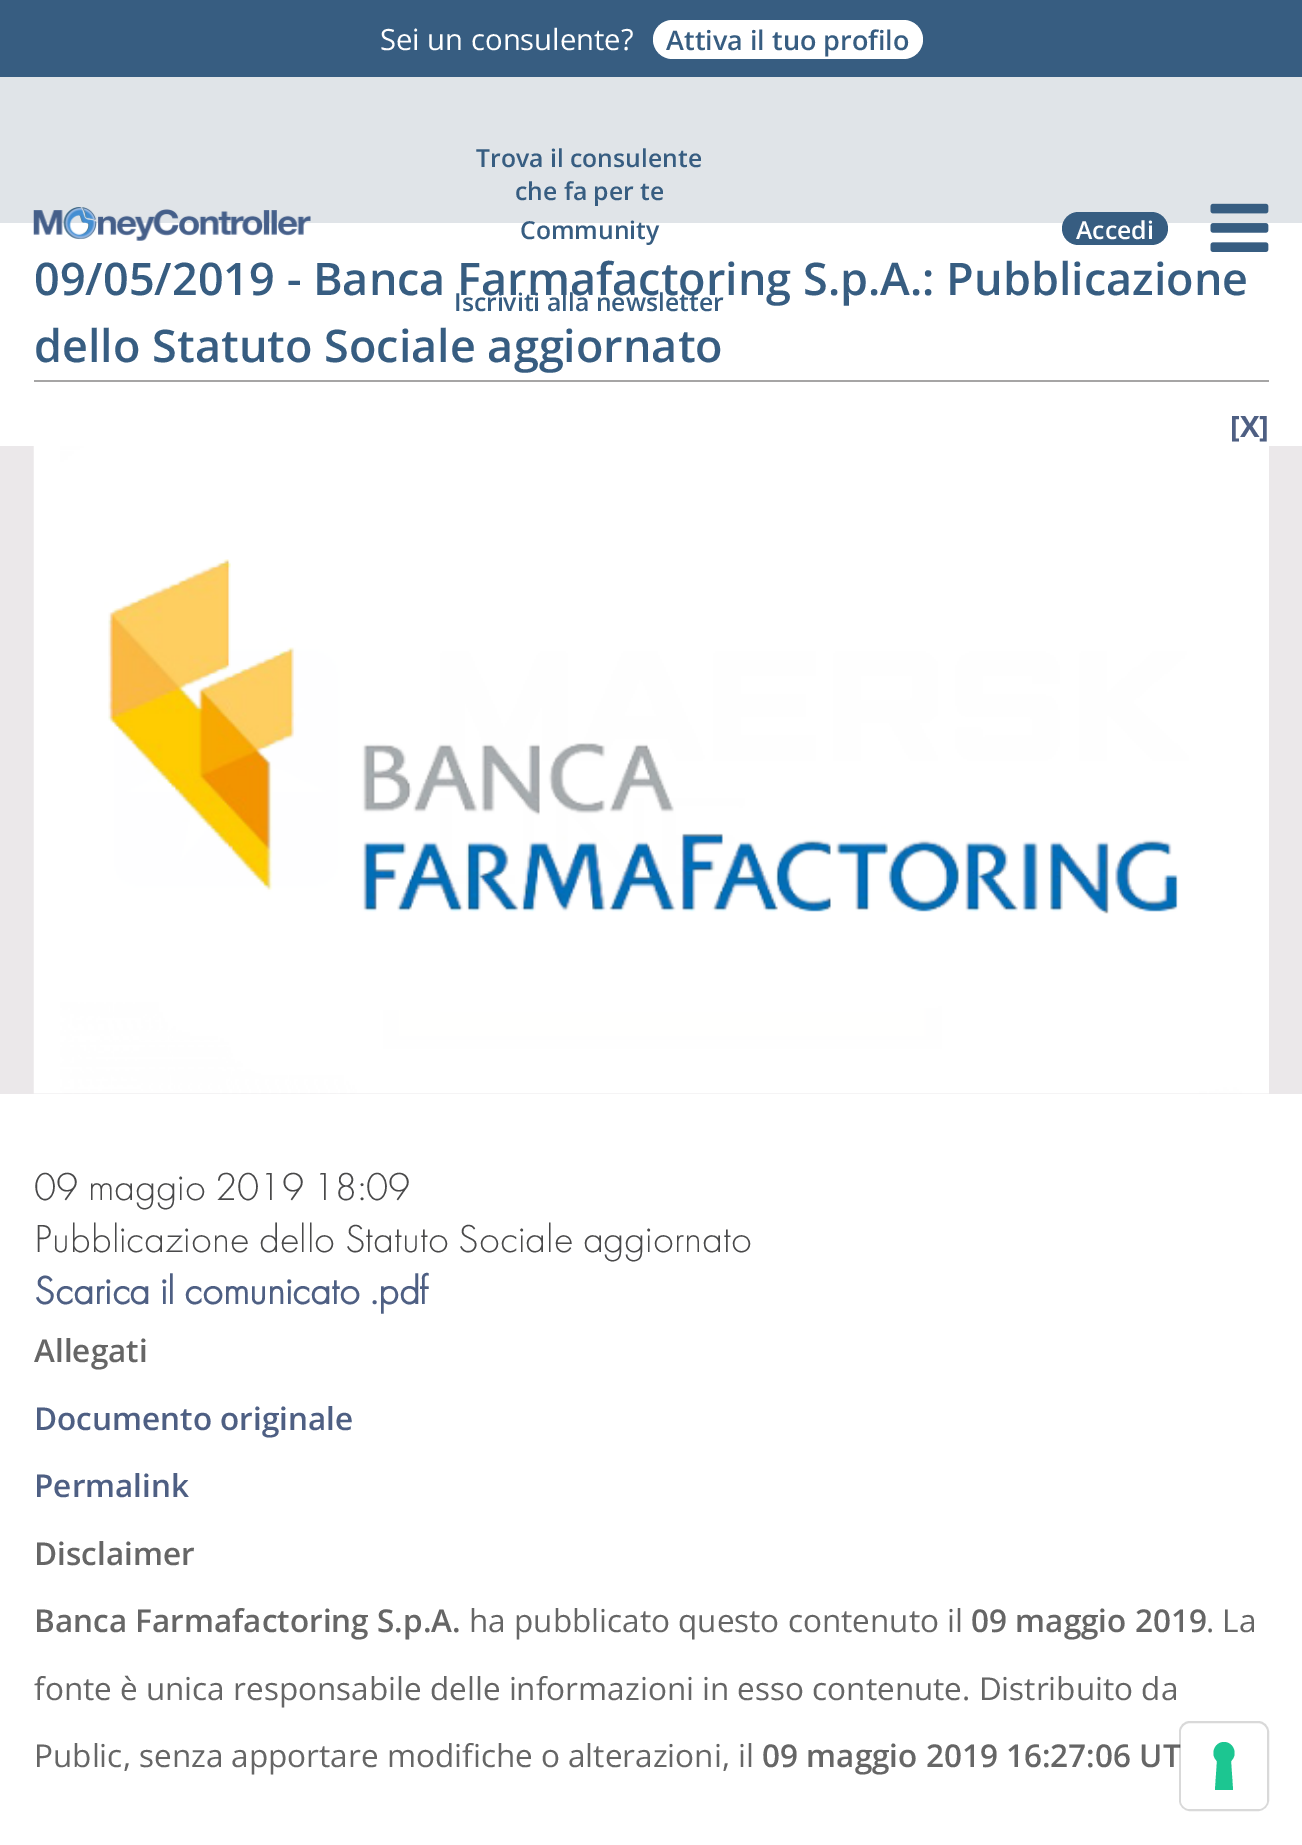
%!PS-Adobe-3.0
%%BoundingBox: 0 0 1302 1845
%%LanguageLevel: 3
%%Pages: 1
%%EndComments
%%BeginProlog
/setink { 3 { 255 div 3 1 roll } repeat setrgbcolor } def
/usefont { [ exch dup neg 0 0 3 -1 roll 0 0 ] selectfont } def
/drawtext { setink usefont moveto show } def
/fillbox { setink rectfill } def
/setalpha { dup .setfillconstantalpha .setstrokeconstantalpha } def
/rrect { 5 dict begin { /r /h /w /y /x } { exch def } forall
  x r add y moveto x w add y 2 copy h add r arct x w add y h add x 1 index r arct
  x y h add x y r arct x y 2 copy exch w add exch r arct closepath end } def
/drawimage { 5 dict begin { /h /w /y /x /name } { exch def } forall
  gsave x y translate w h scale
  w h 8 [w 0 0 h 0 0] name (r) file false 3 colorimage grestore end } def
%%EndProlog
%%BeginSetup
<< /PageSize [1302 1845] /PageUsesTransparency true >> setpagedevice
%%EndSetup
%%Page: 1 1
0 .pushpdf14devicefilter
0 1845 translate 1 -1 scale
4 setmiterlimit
0 0 1302 1845 255 255 255 fillbox
0 77 1302 146 224 228 232 fillbox
0 0 1302 77 55 93 129 fillbox
(Sei un consulente?) 380 50 /OpenSans-Regular 29.25 255 255 255 drawtext
653 20 270 39 19.5 rrect fill
(Attiva il tuo profilo) 666 50 /OpenSans-SemiBold 27 55 93 129 drawtext
(assets/img1.rgb) 33 207 278 34 drawimage
(Trova il consulente) 476 167 /OpenSans-SemiBold 24.75 55 93 129 drawtext
(che fa per te) 515 200 /OpenSans-SemiBold 24.75 55 93 129 drawtext
(Community) 520 239 /OpenSans-SemiBold 24.75 55 93 129 drawtext
(09/05/2019 - Banca Farmafactoring S.p.A.: Pubblicazione) 34 295 /OpenSans-SemiBold 45 55 93 129 drawtext
(Iscriviti alla newsletter) 454 311 /OpenSans-SemiBold 24.75 55 93 129 drawtext
1062 212 106 33 16.5 rrect fill
(Accedi) 1076 239 /OpenSans-SemiBold 24.75 255 255 255 drawtext
(assets/img2.rgb) 1210 203 59 49 drawimage
34 380 1235 2 166 165 165 fillbox
(dello Statuto Sociale aggiornato) 34 362 /OpenSans-SemiBold 45 55 93 129 drawtext
([X]) 1230 437 /OpenSans-Bold 29.25 78 95 131 drawtext
0 446 1302 648 235 232 234 fillbox
(assets/img3.rgb) 33 446 1236 648 drawimage
(09 maggio 2019 18:09) 34 1200 /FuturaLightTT-Light 40.5 73 73 74 drawtext
(Pubblicazione dello Statuto Sociale aggiornato) 34 1252 /FuturaLightTT-Light 40.5 73 73 74 drawtext
(Scarica il comunicato .pdf) 34 1304 /FuturaLightTT-Bold 40.5 78 95 131 drawtext
(Allegati) 34 1362 /OpenSans-SemiBold 31.5 102 102 102 drawtext
(Documento originale) 34 1430 /OpenSans-SemiBold 31.5 78 95 131 drawtext
(Permalink) 34 1497 /OpenSans-SemiBold 31.5 78 95 131 drawtext
(Disclaimer) 34 1565 /OpenSans-SemiBold 31.5 102 102 102 drawtext
(Banca Farmafactoring S.p.A.) 34 1632 /OpenSans-SemiBold 31.5 102 102 102 drawtext
(ha pubblicato questo contenuto il) 469 1632 /OpenSans-Regular 31.5 102 102 102 drawtext
(09 maggio 2019) 971 1632 /OpenSans-SemiBold 31.5 102 102 102 drawtext
(. La) 1206 1632 /OpenSans-Regular 31.5 102 102 102 drawtext
(fonte è unica responsabile delle informazioni in esso contenute. Distribuito da) 34 1700 /OpenSans-Regular 31.5 102 102 102 drawtext
(Public, senza apportare modifiche o alterazioni, il) 34 1767 /OpenSans-Regular 31.5 102 102 102 drawtext
(09 maggio 2019 16:27:06 UT) 762 1767 /OpenSans-SemiBold 31.5 102 102 102 drawtext
0.15 setalpha
0 0 0 setink
2 setlinewidth
1180 1722 88 88 10 rrect stroke
1 setalpha
255 255 255 setink
1181 1724 86 85 9 rrect fill
28 198 145 setink
1224 1742 moveto 1234 1742 1238 1755 1231 1761 curveto 1233 1790 lineto 1215 1790 lineto 1217 1761 lineto 1210 1755 1214 1742 1224 1742 curveto closepath eofill
.poppdf14devicefilter showpage
%%EOF
